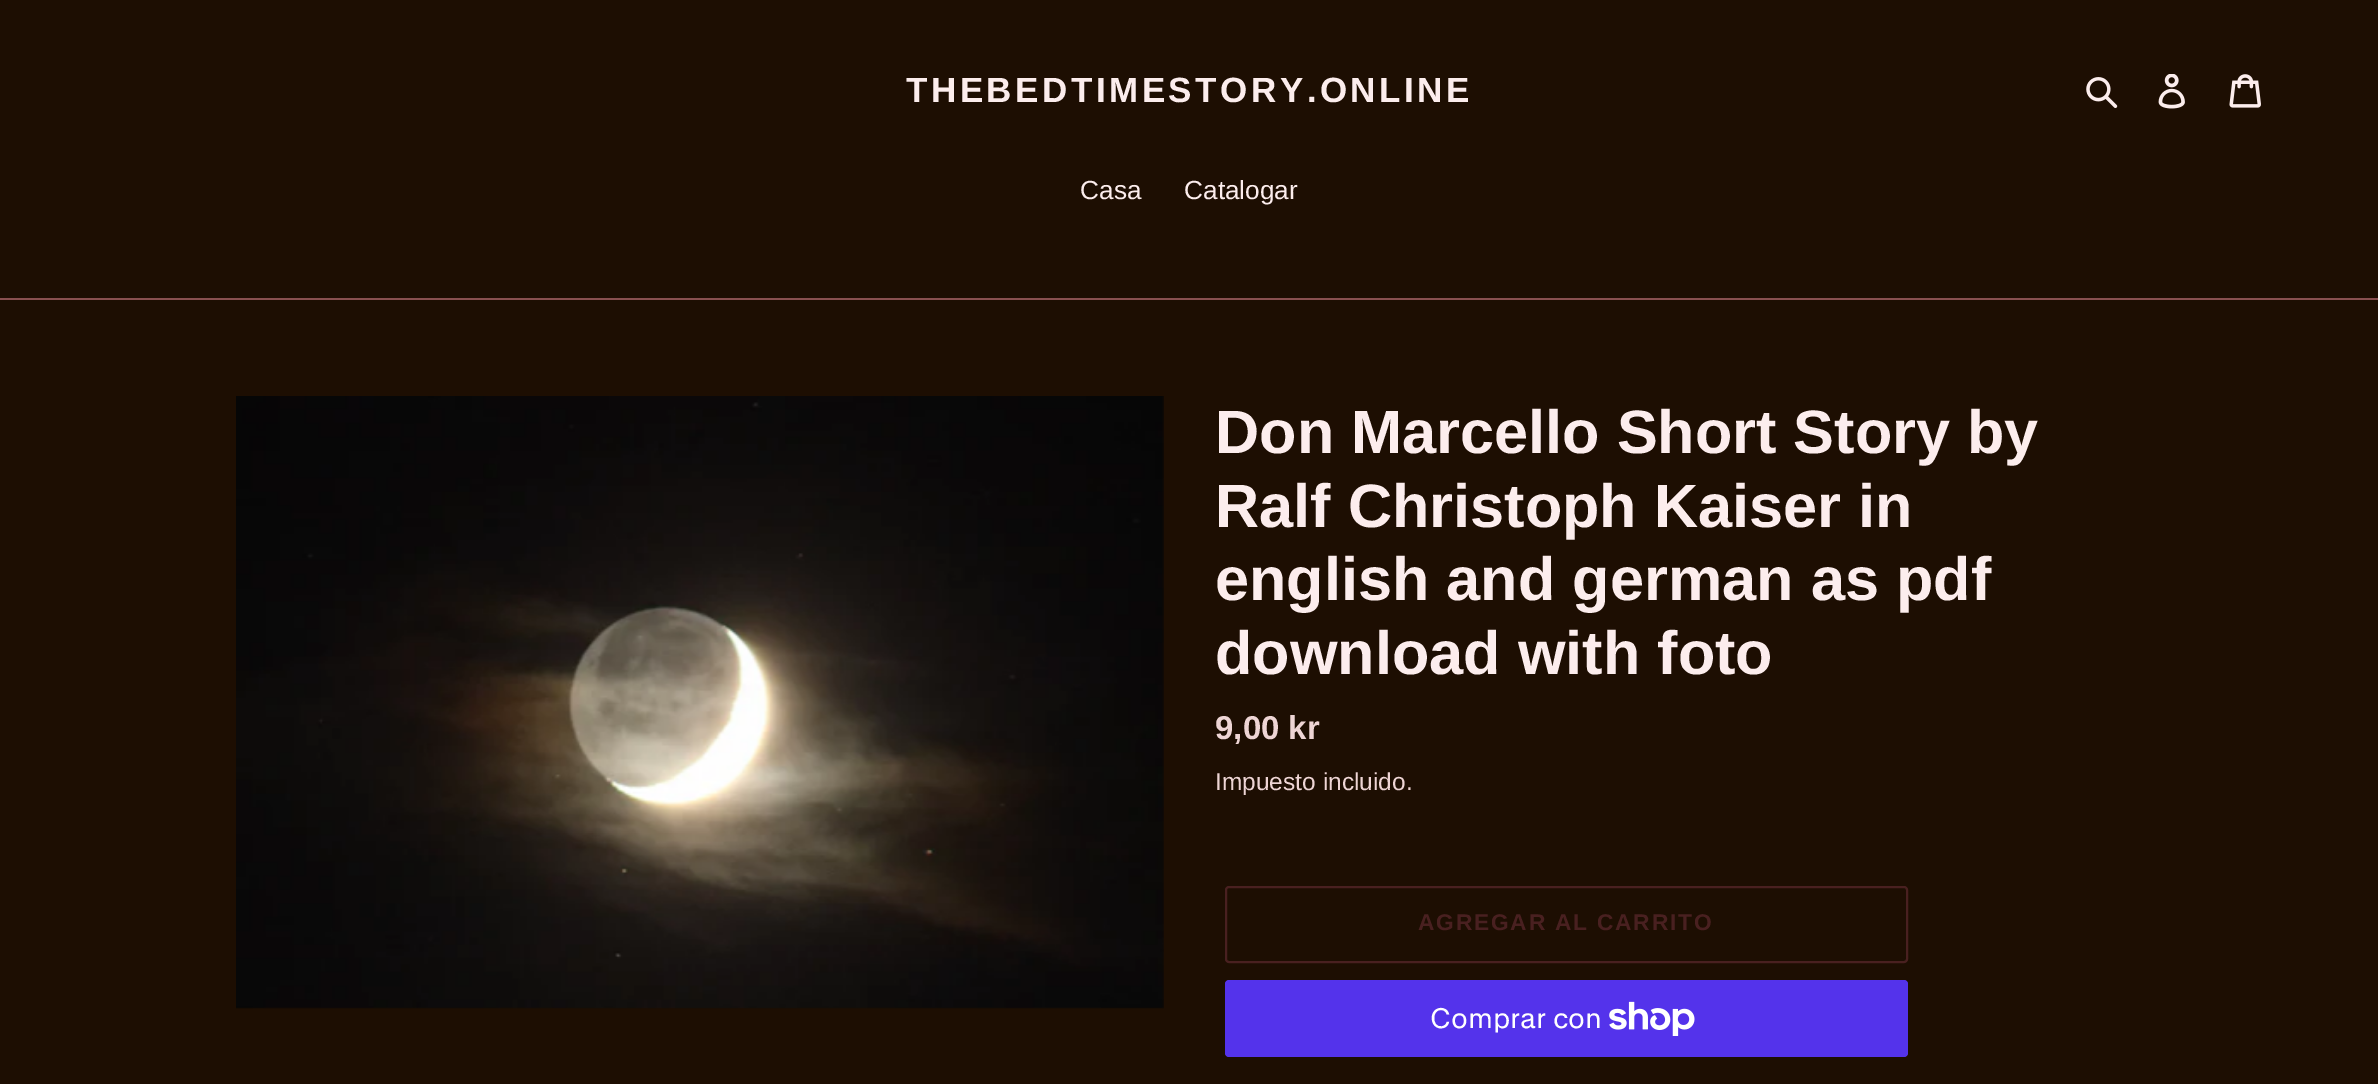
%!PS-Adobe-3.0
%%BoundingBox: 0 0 2378 1084
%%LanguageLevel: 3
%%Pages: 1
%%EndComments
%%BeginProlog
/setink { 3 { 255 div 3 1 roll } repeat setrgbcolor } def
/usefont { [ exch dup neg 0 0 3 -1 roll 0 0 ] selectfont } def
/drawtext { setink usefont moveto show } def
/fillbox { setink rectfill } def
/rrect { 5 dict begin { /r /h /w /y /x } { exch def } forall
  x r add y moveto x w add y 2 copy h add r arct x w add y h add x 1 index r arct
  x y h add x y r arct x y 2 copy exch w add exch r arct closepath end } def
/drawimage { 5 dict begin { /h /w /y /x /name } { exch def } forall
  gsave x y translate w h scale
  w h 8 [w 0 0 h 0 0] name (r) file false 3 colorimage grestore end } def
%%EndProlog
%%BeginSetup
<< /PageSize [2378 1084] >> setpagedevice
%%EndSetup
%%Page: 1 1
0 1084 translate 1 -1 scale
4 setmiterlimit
0 0 2378 1084 29 14 2 fillbox
/LiberationSans-Bold 35 usefont
252 237 237 setink
906 102 moveto 3.5 0 (THEBEDTIMESTORY.ONLINE) ashow
(assets/img1.rgb) 2086 77 32 31 drawimage
(assets/img2.rgb) 2158 74 27 35 drawimage
(assets/img3.rgb) 2229 74 32 34 drawimage
0 298 2378 2 137 80 80 fillbox
(Casa) 1080 199 /LiberationSans-Regular 26.25 252 237 237 drawtext
(Catalogar) 1184 199 /LiberationSans-Regular 26.25 252 237 237 drawtext
(assets/img4.rgb) 236 396 928 613 drawimage
(Don Marcello Short Story by) 1215 453 /LiberationSans-Bold 61.25 252 237 237 drawtext
(Ralf Christoph Kaiser in) 1215 527 /LiberationSans-Bold 61.25 252 237 237 drawtext
(english and german as pdf) 1215 600 /LiberationSans-Bold 61.25 252 237 237 drawtext
(download with foto) 1215 674 /LiberationSans-Bold 61.25 252 237 237 drawtext
(9,00 kr) 1215 739 /LiberationSans-Bold 33 238 213 213 drawtext
(Impuesto incluido.) 1215 790 /LiberationSans-Regular 24.5 238 213 213 drawtext
73 32 32 setink
2 setlinewidth
1226 887 681 75 3 rrect stroke
/LiberationSans-Bold 22.75 usefont
1418 930 moveto 1.8 0 (AGREGAR AL CARRITO) ashow
84 51 235 setink
1225 980 683 77 4 rrect fill
(Comprar con) 1430 1028 /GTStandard-Regular 28 255 255 255 drawtext
(assets/img5.rgb) 1609 1001 86 35 drawimage
showpage
%%EOF
